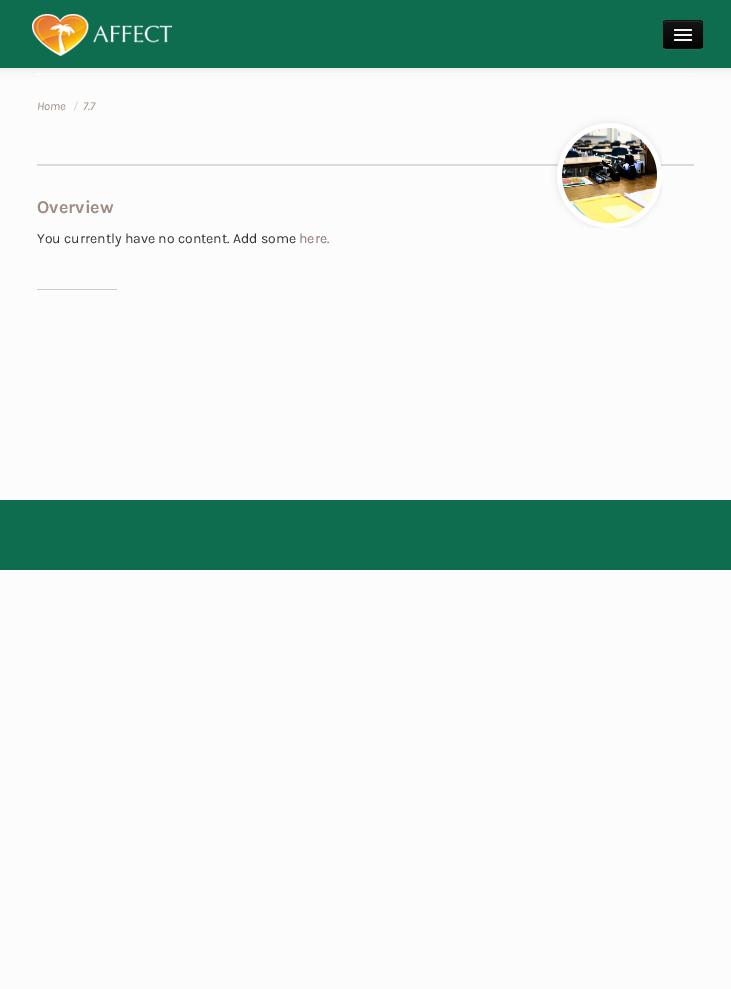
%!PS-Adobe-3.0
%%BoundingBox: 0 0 731 989
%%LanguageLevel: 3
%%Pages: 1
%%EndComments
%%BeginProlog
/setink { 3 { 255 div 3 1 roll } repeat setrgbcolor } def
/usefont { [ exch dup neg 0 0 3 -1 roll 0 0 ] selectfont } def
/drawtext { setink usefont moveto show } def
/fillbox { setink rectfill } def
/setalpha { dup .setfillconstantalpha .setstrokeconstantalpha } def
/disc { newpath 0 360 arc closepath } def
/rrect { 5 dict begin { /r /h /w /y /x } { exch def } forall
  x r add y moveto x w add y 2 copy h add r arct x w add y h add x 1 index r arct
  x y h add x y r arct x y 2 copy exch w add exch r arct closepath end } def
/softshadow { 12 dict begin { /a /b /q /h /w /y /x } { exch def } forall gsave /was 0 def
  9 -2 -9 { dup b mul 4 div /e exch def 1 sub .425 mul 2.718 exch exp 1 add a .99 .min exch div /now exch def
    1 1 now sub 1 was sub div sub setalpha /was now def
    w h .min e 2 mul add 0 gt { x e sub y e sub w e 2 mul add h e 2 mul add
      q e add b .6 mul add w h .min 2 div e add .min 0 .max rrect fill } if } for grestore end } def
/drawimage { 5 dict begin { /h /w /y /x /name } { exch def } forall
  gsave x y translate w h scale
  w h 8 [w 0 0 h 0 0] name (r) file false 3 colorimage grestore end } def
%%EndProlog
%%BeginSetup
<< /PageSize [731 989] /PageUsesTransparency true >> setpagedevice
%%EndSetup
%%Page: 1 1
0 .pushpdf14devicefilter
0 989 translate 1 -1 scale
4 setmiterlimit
0 0 731 989 252 252 252 fillbox
0 0 0 setink
-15 1 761 68 0 5 0.1 softshadow
0 0 731 68 14 109 78 fillbox
(assets/img1.rgb) 32 14 140 42 drawimage
32 120 91 setink
663 45 moveto 663 51 668 50 672 50 curveto 694 50 lineto 698 50 703 51 703 45 curveto 703 47 701 49 699 49 curveto 667 49 lineto 665 49 663 47 663 45 curveto closepath fill
14 14 14 setink
663 20 40 29 4 rrect fill
gsave
663 20 40 29 4 rrect clip newpath
gsave 663 21 moveto 703 21 lineto 703 48 lineto 663 48 lineto closepath clip newpath
<< /ShadingType 2 /ColorSpace /DeviceRGB /Coords [683 21 683 48] /Extend [true true] /Function << /FunctionType 2 /Domain [0 1] /C0 [0.082 0.082 0.082] /C1 [0.016 0.016 0.016] /N 1 >> >> shfill grestore
grestore
44 44 44 setink
667 22 moveto 699 22 lineto 701 22 702 23 702 25 curveto 702 20 698 21 693.5 21 curveto 672.5 21 lineto 668 21 664 20 664 25 curveto 664 23 665 22 667 22 curveto closepath fill
0.25 setalpha
0 0 0 setink
701.5 47.5 moveto 701 48 700 48.5 699 48.5 curveto 667 48.5 lineto 666 48.5 665 48 664.5 47.5 curveto stroke
0.1 setalpha
664.5 47.5 moveto 664 47 663.5 46 663.5 45 curveto 663.5 24 lineto 663.5 23 664 22 664.5 21.5 curveto 665 21 666 20.5 667 20.5 curveto 699 20.5 lineto 700 20.5 701 21 701.5 21.5 curveto 702 22 702.5 23 702.5 24 curveto 702.5 45 lineto 702.5 46 702 47 701.5 47.5 curveto stroke
1 setalpha
11 11 11 setink
674 30.5 moveto 673 32.5 677.5 32 677.5 32 curveto 688.5 32 lineto 688.5 32 693 32.5 692 30.5 curveto 691 31.5 684.5 31 683 31 curveto 681.5 31 675 31.5 674 30.5 curveto closepath fill
245 245 245 setink
674 29 18 2 1 rrect fill
8 8 8 setink
674 35.5 moveto 673 37.5 677.5 37 677.5 37 curveto 688.5 37 lineto 688.5 37 693 37.5 692 35.5 curveto 691 36.5 684.5 36 683 36 curveto 681.5 36 675 36.5 674 35.5 curveto closepath fill
245 245 245 setink
674 34 18 2 1 rrect fill
674 39 18 2 1 rrect fill
37 73 657 2 252 252 252 fillbox
37 164 657 2 224 217 215 fillbox
(Home) 37 110 /Karla-Italic 12 157 140 132 drawtext
(/) 73 110 /Karla-Italic 12 204 204 204 drawtext
(7.7) 83 110 /Karla-Italic 12 157 140 132 drawtext
gsave
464 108 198 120 rectclip
0 0 0 setink
557 123 105 105 52.5 3.5 0.1 softshadow
grestore
255 255 255 setink
5 setlinewidth
609.5 175.5 50 disc stroke
(assets/img2.rgb) 562 128 95 95 drawimage
(Overview) 37 213 /Karla-Bold 18 157 140 132 drawtext
(You currently have no content. Add some) 37 243 /Karla-Regular 14 51 51 51 drawtext
(here.) 299 243 /Karla-Regular 14 135 115 106 drawtext
37 289 80 1 204 204 204 fillbox
0 500 731 70 14 109 78 fillbox
.poppdf14devicefilter showpage
%%EOF
